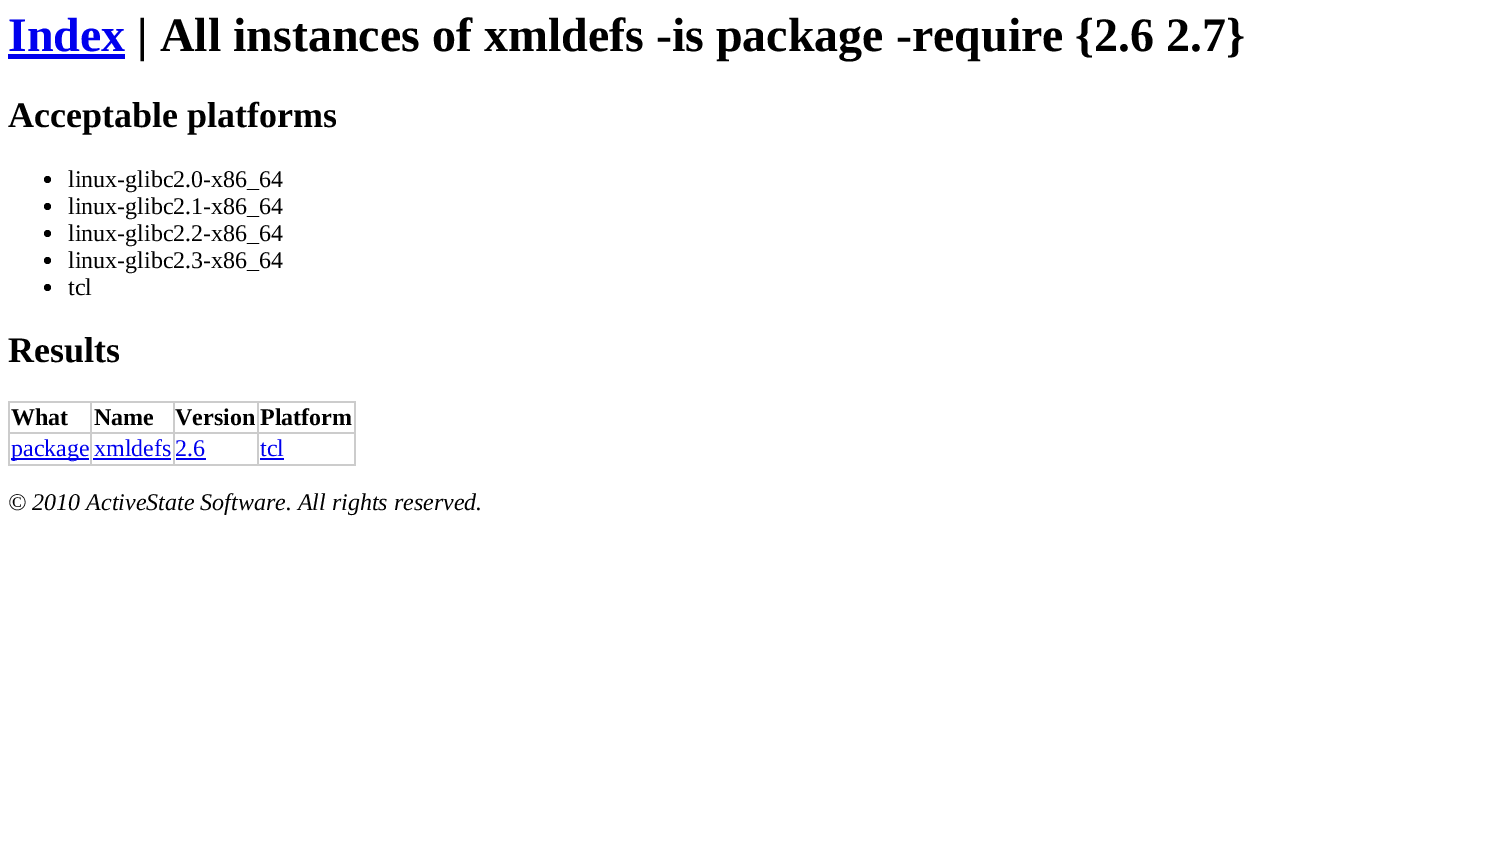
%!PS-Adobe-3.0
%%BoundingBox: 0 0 1511 847
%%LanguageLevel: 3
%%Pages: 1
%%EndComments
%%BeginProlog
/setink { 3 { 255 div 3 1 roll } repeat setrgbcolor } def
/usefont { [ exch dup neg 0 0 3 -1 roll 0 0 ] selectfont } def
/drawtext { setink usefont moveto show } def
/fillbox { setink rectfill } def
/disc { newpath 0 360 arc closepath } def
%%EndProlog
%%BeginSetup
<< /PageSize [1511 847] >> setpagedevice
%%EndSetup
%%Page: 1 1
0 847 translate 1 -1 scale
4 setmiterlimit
0 0 1511 847 255 255 255 fillbox
(Index) 8 51 /LiberationSerif-Bold 48 0 0 238 drawtext
8 54 117 5 0 0 238 fillbox
(| All instances of xmldefs -is package -require {2.6 2.7}) 137 51 /LiberationSerif-Bold 48 0 0 0 drawtext
(Acceptable platforms) 8 127 /LiberationSerif-Bold 36 0 0 0 drawtext
47.5 179.5 3.5 disc fill
(linux-glibc2.0-x86_64) 68 187 /LiberationSerif-Regular 24 0 0 0 drawtext
47.5 206.5 3.5 disc fill
(linux-glibc2.1-x86_64) 68 214 /LiberationSerif-Regular 24 0 0 0 drawtext
47.5 233.5 3.5 disc fill
(linux-glibc2.2-x86_64) 68 241 /LiberationSerif-Regular 24 0 0 0 drawtext
47.5 260.5 3.5 disc fill
(linux-glibc2.3-x86_64) 68 268 /LiberationSerif-Regular 24 0 0 0 drawtext
47.5 287.5 3.5 disc fill
(tcl) 68 295 /LiberationSerif-Regular 24 0 0 0 drawtext
(Results) 8 362 /LiberationSerif-Bold 36 0 0 0 drawtext
257 401 99 2 204 204 204 fillbox
257 432 99 2 204 204 204 fillbox
354 432 2 33 204 204 204 fillbox
257 464 99 2 204 204 204 fillbox
257 432 2 33 204 204 204 fillbox
173 432 85 2 204 204 204 fillbox
257 401 2 33 204 204 204 fillbox
173 401 85 2 204 204 204 fillbox
173 464 85 2 204 204 204 fillbox
173 432 2 33 204 204 204 fillbox
90 432 84 2 204 204 204 fillbox
173 401 2 33 204 204 204 fillbox
90 401 84 2 204 204 204 fillbox
90 464 84 2 204 204 204 fillbox
90 432 2 33 204 204 204 fillbox
8 432 84 2 204 204 204 fillbox
90 401 2 33 204 204 204 fillbox
8 401 84 2 204 204 204 fillbox
8 464 84 2 204 204 204 fillbox
8 432 2 33 204 204 204 fillbox
8 401 2 33 204 204 204 fillbox
(What) 11 425 /LiberationSerif-Bold 24 0 0 0 drawtext
(Name) 94 425 /LiberationSerif-Bold 24 0 0 0 drawtext
(Version) 175 425 /LiberationSerif-Bold 24 0 0 0 drawtext
354 401 2 33 204 204 204 fillbox
(Platform) 260 425 /LiberationSerif-Bold 24 0 0 0 drawtext
11 458 78 2 0 0 238 fillbox
(package) 11 456 /LiberationSerif-Regular 24 0 0 238 drawtext
(xmldefs) 94 456 /LiberationSerif-Regular 24 0 0 238 drawtext
93 458 78 2 0 0 238 fillbox
(2.6) 175 456 /LiberationSerif-Regular 24 0 0 238 drawtext
176 458 30 2 0 0 238 fillbox
(tcl) 260 456 /LiberationSerif-Regular 24 0 0 238 drawtext
260 458 24 2 0 0 238 fillbox
(© 2010 ActiveState Software. All rights reserved.) 8 510 /LiberationSerif-Italic 24 0 0 0 drawtext
showpage
%%EOF
